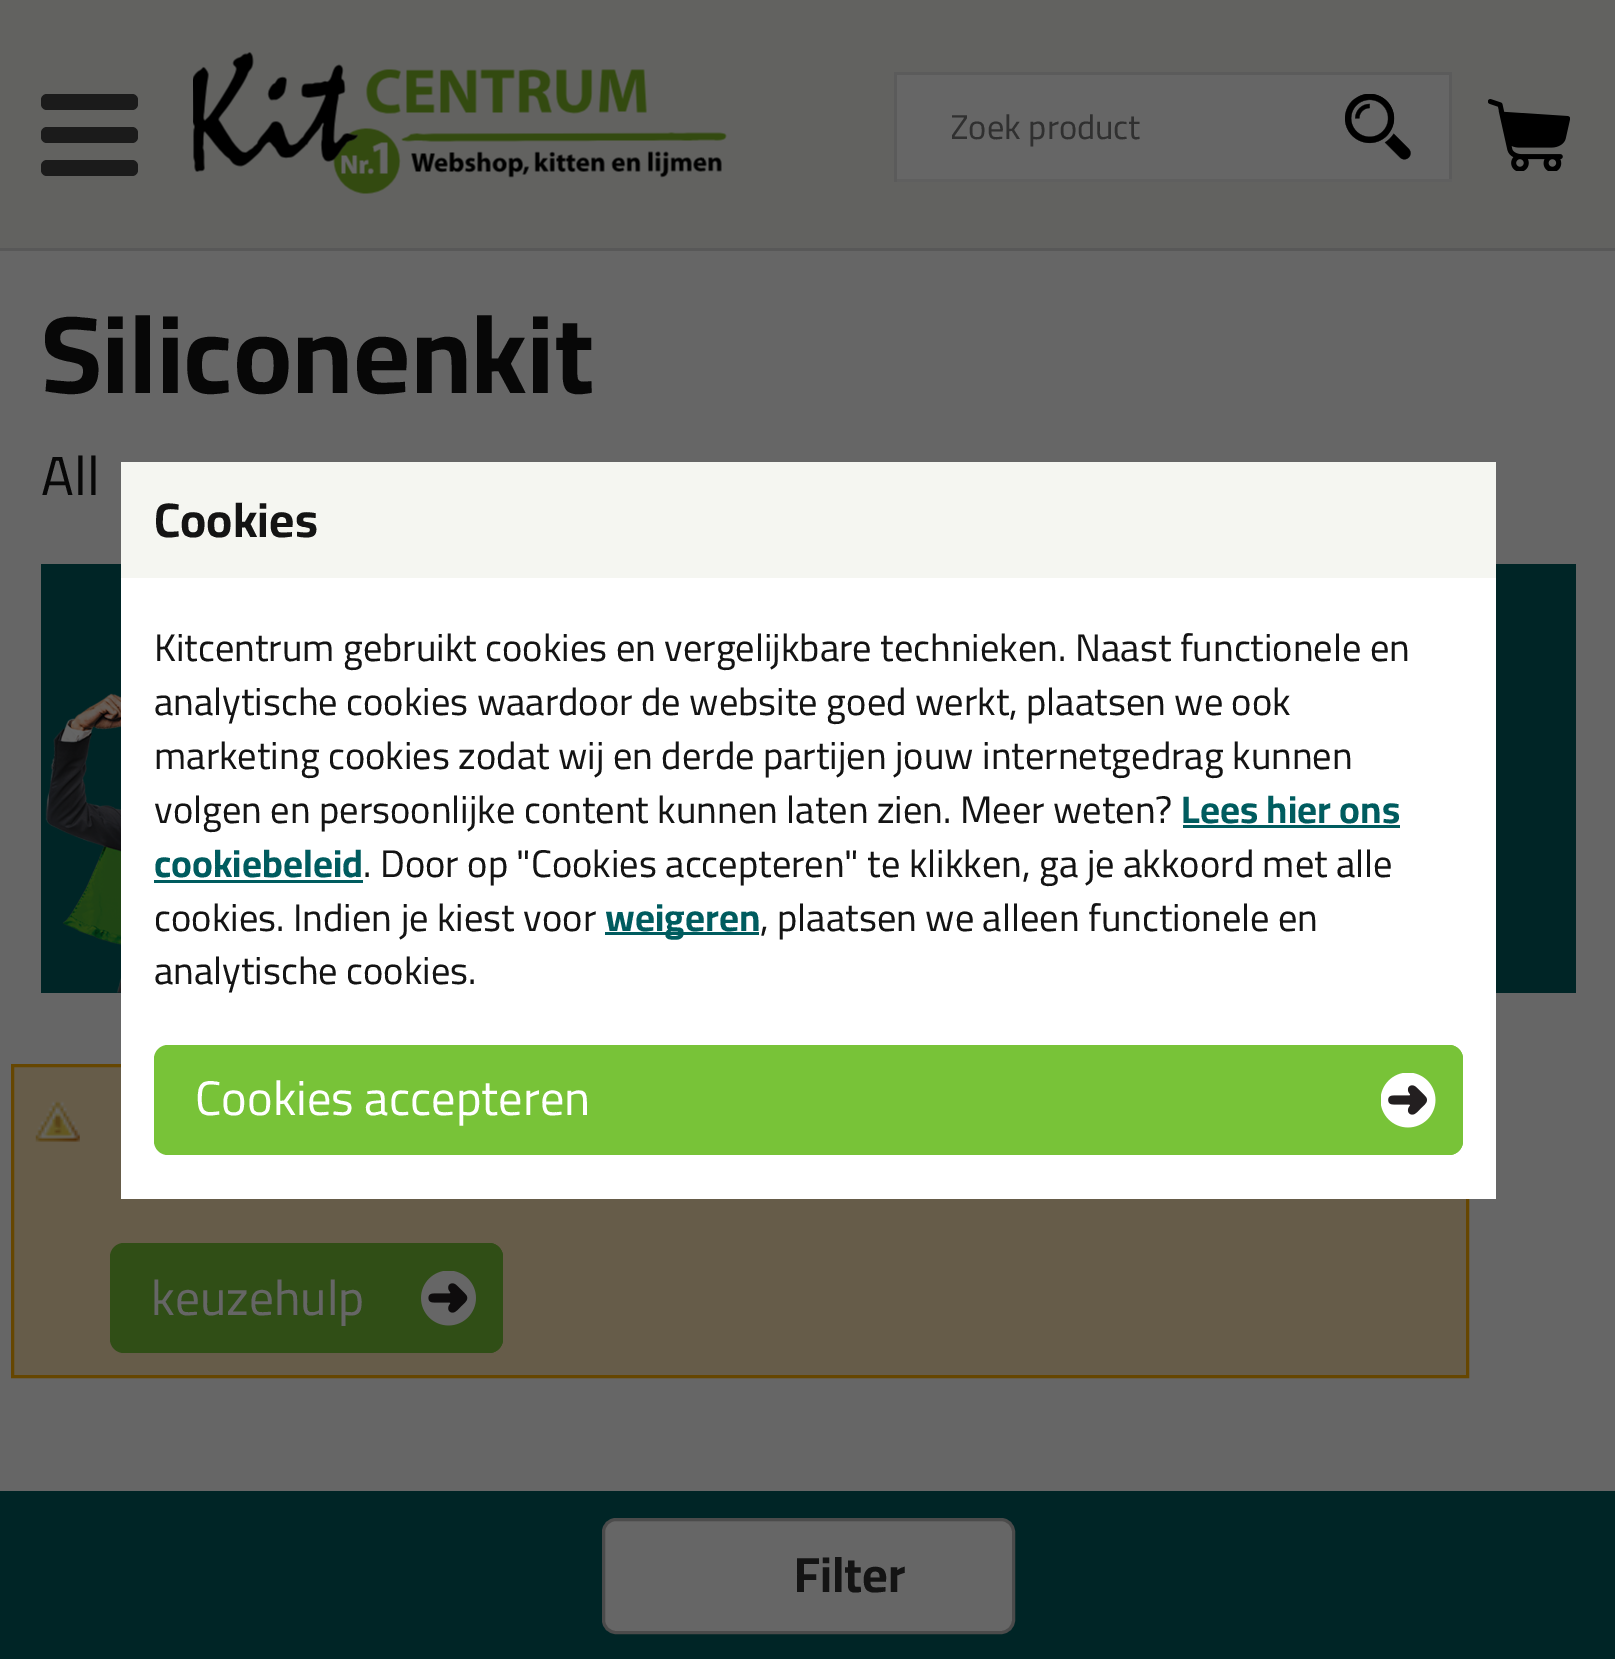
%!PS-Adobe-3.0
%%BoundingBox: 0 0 1615 1659
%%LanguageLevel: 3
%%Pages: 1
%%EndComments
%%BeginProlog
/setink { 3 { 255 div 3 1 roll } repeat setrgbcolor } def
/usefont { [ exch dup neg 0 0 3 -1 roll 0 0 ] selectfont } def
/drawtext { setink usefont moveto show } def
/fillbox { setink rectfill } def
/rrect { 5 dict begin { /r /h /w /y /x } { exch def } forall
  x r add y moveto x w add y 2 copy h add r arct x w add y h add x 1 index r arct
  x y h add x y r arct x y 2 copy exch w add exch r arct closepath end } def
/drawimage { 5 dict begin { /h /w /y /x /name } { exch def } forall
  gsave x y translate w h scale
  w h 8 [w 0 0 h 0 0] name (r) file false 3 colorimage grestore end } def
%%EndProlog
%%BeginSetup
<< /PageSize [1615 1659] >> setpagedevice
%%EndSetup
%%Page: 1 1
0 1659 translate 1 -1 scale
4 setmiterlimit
0 0 1615 1659 102 102 102 fillbox
0 248 1615 3 88 88 88 fillbox
0 0 1615 248 98 98 96 fillbox
27 27 27 setink
41 94 97 16 6 rrect fill
41 127 97 16 6 rrect fill
41 160 97 16 6 rrect fill
(assets/img1.rgb) 193 52 534 142 drawimage
897 75 552 104 102 102 102 fillbox
(assets/img2.rgb) 1345 94 66 66 drawimage
894 72 558 3 91 91 91 fillbox
1449 72 3 110 91 91 91 fillbox
894 179 558 3 95 95 95 fillbox
894 72 3 110 91 91 91 fillbox
gsave
952 96 343 64 rectclip
(Zoek product) 950 139 /Cairo-Regular 34.5 48 48 48 drawtext
grestore
(assets/img3.rgb) 1488 99 82 72 drawimage
(Siliconenkit) 41 393 /Cairo-Bold 110 7 7 7 drawtext
(All) 41 495 /Cairo-Regular 55 7 7 7 drawtext
41 564 1535 429 0 37 38 fillbox
(assets/img4.rgb) 45 693 76 300 drawimage
0 1491 1615 168 0 37 38 fillbox
102 102 102 setink
603.5 1519.5 410 113 12.5 rrect gsave fill grestore
75 75 75 setink
3 setlinewidth
stroke
(Filter) 794 1592 /Cairo-Bold 49.5 20 20 20 drawtext
14 1067 1452 308 102 92 73 fillbox
(assets/img5.rgb) 35 1101 45 41 drawimage
102 70 0 setink
12.5 1065.5 1455 311 rectstroke
48 78 22 setink
110 1243 393 110 14 rrect fill
(keuzehulp) 151 1315 /Cairo-Regular 49.5 102 102 102 drawtext
48 78 22 setink
393 1243 moveto 489 1243 lineto 496.5 1243 503 1249.5 503 1257 curveto 503 1339 lineto 503 1346.5 496.5 1353 489 1353 curveto 393 1353 lineto closepath fill
(assets/img6.rgb) 421 1271 55 55 drawimage
121 578 1375 621 255 255 255 fillbox
121 462 1375 116 245 246 241 fillbox
(Cookies) 154 537 /Cairo-Bold 48.5 20 20 20 drawtext
(Kitcentrum gebruikt cookies en vergelijkbare technieken. Naast functionele en) 154 661 /Cairo-Regular 38.5 20 20 20 drawtext
(analytische cookies waardoor de website goed werkt, plaatsen we ook) 154 715 /Cairo-Regular 38.5 20 20 20 drawtext
(marketing cookies zodat wij en derde partijen jouw internetgedrag kunnen) 154 769 /Cairo-Regular 38.5 20 20 20 drawtext
(volgen en persoonlijke content kunnen laten zien. Meer weten?) 154 823 /Cairo-Regular 38.5 20 20 20 drawtext
(Lees hier ons) 1181 823 /Cairo-Bold 38.5 0 92 95 drawtext
1183 825 217 3 0 92 95 fillbox
(cookiebeleid) 154 877 /Cairo-Bold 38.5 0 92 95 drawtext
154 880 209 3 0 92 95 fillbox
(. Door op "Cookies accepteren" te klikken, ga je akkoord met alle) 363 877 /Cairo-Regular 38.5 20 20 20 drawtext
(cookies. Indien je kiest voor) 154 931 /Cairo-Regular 38.5 20 20 20 drawtext
605 932 154 3 0 92 95 fillbox
(weigeren) 605 931 /Cairo-Bold 38.5 0 92 95 drawtext
(, plaatsen we alleen functionele en) 760 931 /Cairo-Regular 38.5 20 20 20 drawtext
(analytische cookies.) 154 984 /Cairo-Regular 38.5 20 20 20 drawtext
120 195 56 setink
154 1045 1309 110 14 rrect fill
(Cookies accepteren) 195 1115 /Cairo-Regular 48.5 255 255 255 drawtext
120 195 56 setink
1353 1045 moveto 1449 1045 lineto 1456.5 1045 1463 1051.5 1463 1059 curveto 1463 1141 lineto 1463 1148.5 1456.5 1155 1449 1155 curveto 1353 1155 lineto closepath fill
(assets/img7.rgb) 1381 1073 55 55 drawimage
showpage
%%EOF
